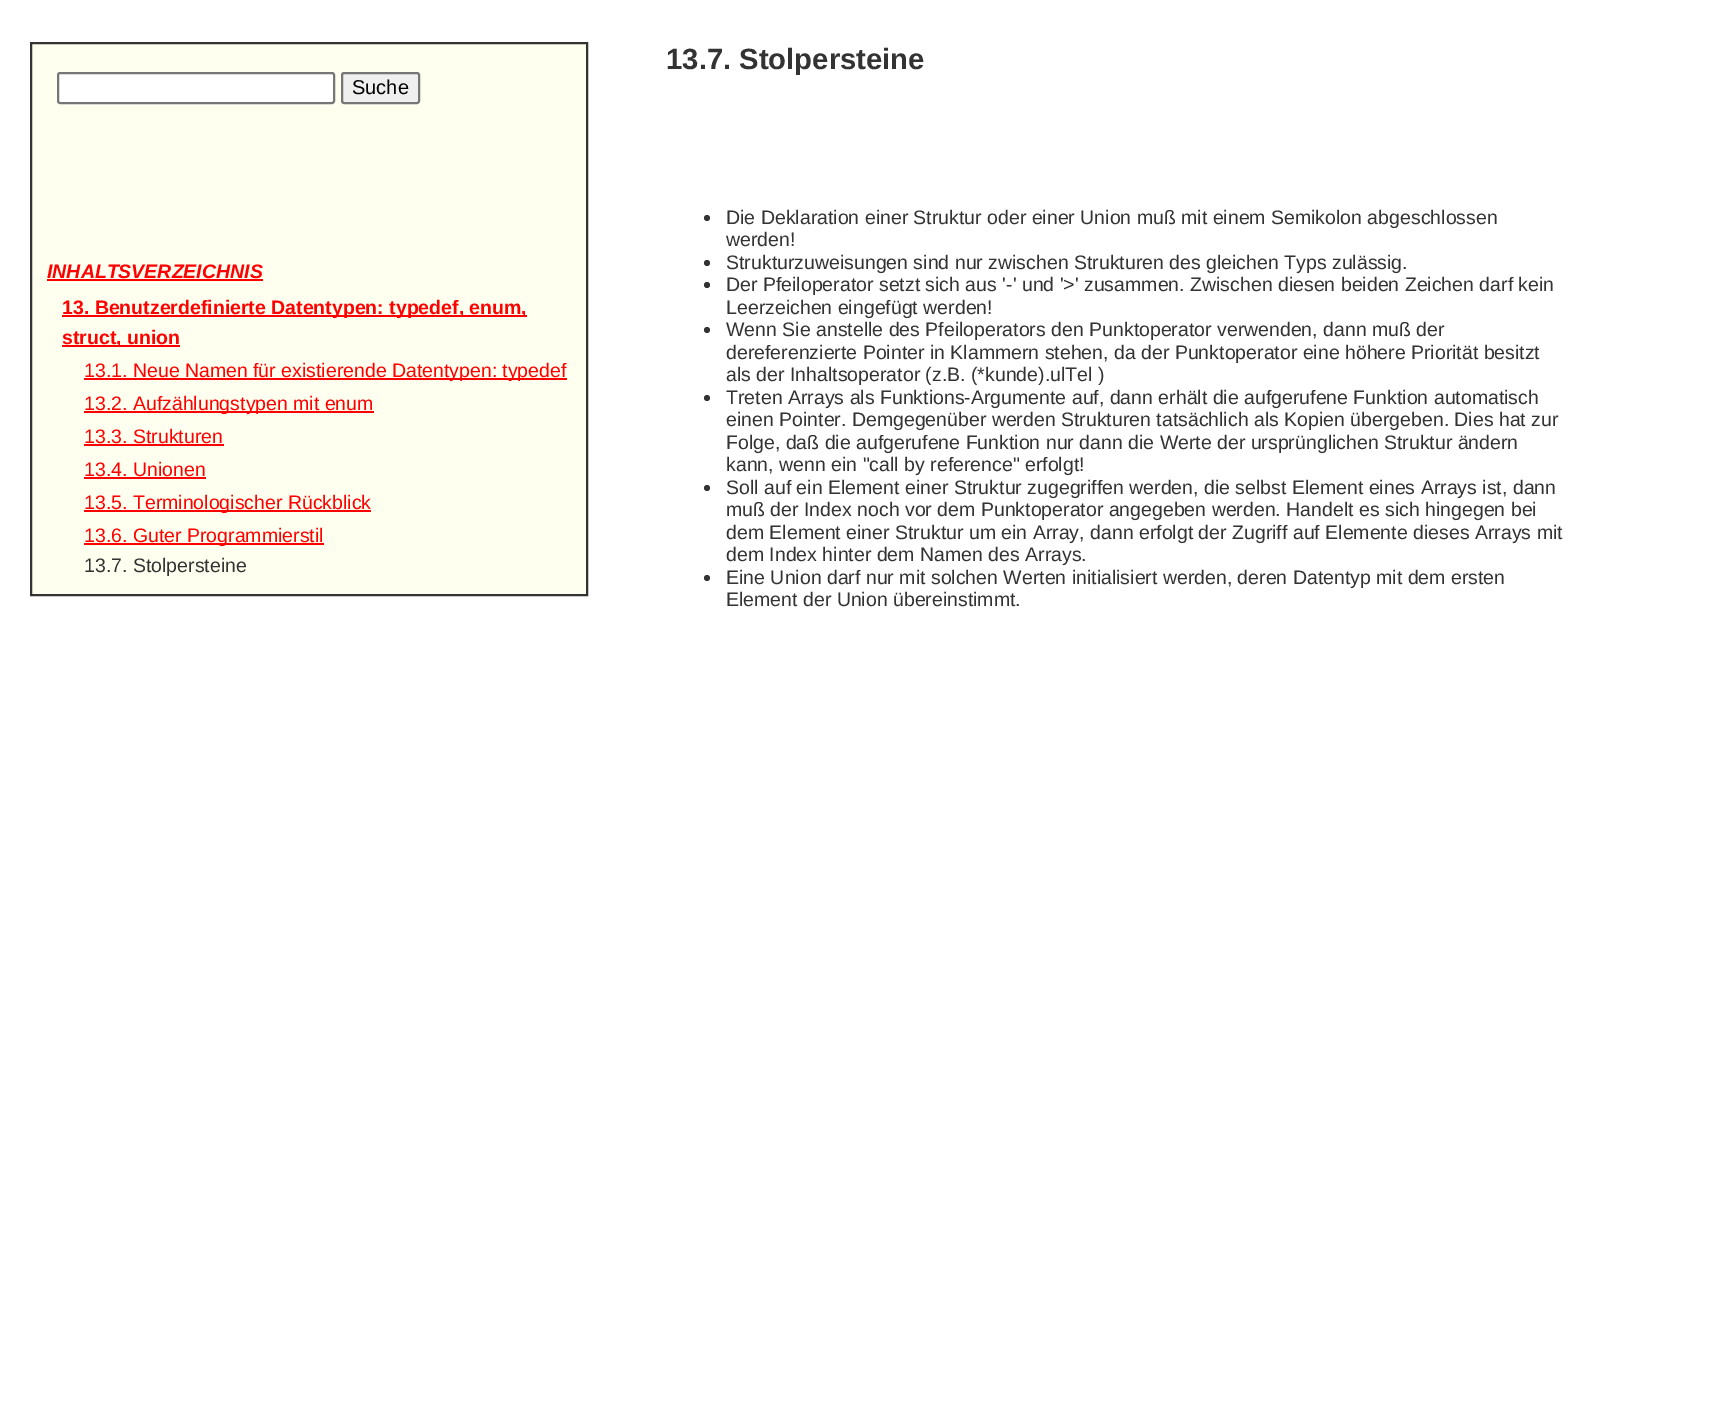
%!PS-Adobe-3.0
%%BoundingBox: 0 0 1731 1407
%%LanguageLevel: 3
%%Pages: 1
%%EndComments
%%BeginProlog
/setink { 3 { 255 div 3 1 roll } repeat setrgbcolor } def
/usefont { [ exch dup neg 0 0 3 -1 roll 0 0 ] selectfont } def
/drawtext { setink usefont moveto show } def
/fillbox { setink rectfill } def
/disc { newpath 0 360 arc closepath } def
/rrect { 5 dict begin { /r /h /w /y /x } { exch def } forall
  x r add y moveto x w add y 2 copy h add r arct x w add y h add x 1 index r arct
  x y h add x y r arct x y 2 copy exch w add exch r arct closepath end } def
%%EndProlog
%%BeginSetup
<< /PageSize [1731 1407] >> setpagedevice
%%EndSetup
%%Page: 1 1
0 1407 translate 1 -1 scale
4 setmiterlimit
0 0 1731 1407 255 255 255 fillbox
255 255 240 setink
31 43 moveto 587 43 lineto 587 595 lineto 31 595 lineto closepath gsave fill grestore
51 51 51 setink
2 setlinewidth
stroke
255 255 255 setink
58 73 276 30 2 rrect gsave fill grestore
118 118 118 setink
stroke
239 239 239 setink
342 73 77 30 2 rrect gsave fill grestore
118 118 118 setink
stroke
(Suche) 352 94 /LiberationSans-Regular 20 0 0 0 drawtext
(INHALTSVERZEICHNIS) 47 278 /LiberationSans-BoldItalic 19.5 255 0 0 drawtext
47 279 216 2 255 0 0 fillbox
62 315 465 2 255 0 0 fillbox
(13. Benutzerdefinierte Datentypen: typedef, enum,) 62 314 /LiberationSans-Bold 19.5 255 0 0 drawtext
62 345 118 2 255 0 0 fillbox
(struct, union) 62 344 /LiberationSans-Bold 19.5 255 0 0 drawtext
84 378 483 2 255 0 0 fillbox
(13.1. Neue Namen für existierende Datentypen: typedef) 84 377 /LiberationSans-Regular 19.5 255 0 0 drawtext
84 411 290 2 255 0 0 fillbox
(13.2. Aufzählungstypen mit enum) 84 410 /LiberationSans-Regular 19.5 255 0 0 drawtext
(13.3. Strukturen) 84 443 /LiberationSans-Regular 19.5 255 0 0 drawtext
84 444 140 2 255 0 0 fillbox
(13.4. Unionen) 84 476 /LiberationSans-Regular 19.5 255 0 0 drawtext
84 477 122 2 255 0 0 fillbox
84 510 287 2 255 0 0 fillbox
(13.5. Terminologischer Rückblick) 84 509 /LiberationSans-Regular 19.5 255 0 0 drawtext
84 543 240 2 255 0 0 fillbox
(13.6. Guter Programmierstil) 84 542 /LiberationSans-Regular 19.5 255 0 0 drawtext
(13.7. Stolpersteine) 84 572 /LiberationSans-Regular 19.5 51 51 51 drawtext
(13.7. Stolpersteine) 666 69 /LiberationSans-Bold 29.25 51 51 51 drawtext
707 218 3 disc fill
(Die Deklaration einer Struktur oder einer Union muß mit einem Semikolon abgeschlossen) 726 224 /LiberationSans-Regular 19.5 51 51 51 drawtext
(werden!) 726 246 /LiberationSans-Regular 19.5 51 51 51 drawtext
707 263 3 disc fill
(Strukturzuweisungen sind nur zwischen Strukturen des gleichen Typs zulässig.) 726 269 /LiberationSans-Regular 19.5 51 51 51 drawtext
707 285 3 disc fill
(Der Pfeiloperator setzt sich aus '-' und '>' zusammen. Zwischen diesen beiden Zeichen darf kein) 726 291 /LiberationSans-Regular 19.5 51 51 51 drawtext
(Leerzeichen eingefügt werden!) 726 314 /LiberationSans-Regular 19.5 51 51 51 drawtext
707 330 3 disc fill
(Wenn Sie anstelle des Pfeiloperators den Punktoperator verwenden, dann muß der) 726 336 /LiberationSans-Regular 19.5 51 51 51 drawtext
(dereferenzierte Pointer in Klammern stehen, da der Punktoperator eine höhere Priorität besitzt) 726 359 /LiberationSans-Regular 19.5 51 51 51 drawtext
(als der Inhaltsoperator \(z.B. \(*kunde\).ulTel \)) 726 381 /LiberationSans-Regular 19.5 51 51 51 drawtext
707 398 3 disc fill
(Treten Arrays als Funktions-Argumente auf, dann erhält die aufgerufene Funktion automatisch) 726 404 /LiberationSans-Regular 19.5 51 51 51 drawtext
(einen Pointer. Demgegenüber werden Strukturen tatsächlich als Kopien übergeben. Dies hat zur) 726 426 /LiberationSans-Regular 19.5 51 51 51 drawtext
(Folge, daß die aufgerufene Funktion nur dann die Werte der ursprünglichen Struktur ändern) 726 449 /LiberationSans-Regular 19.5 51 51 51 drawtext
(kann, wenn ein "call by reference" erfolgt!) 726 471 /LiberationSans-Regular 19.5 51 51 51 drawtext
707 488 3 disc fill
(Soll auf ein Element einer Struktur zugegriffen werden, die selbst Element eines Arrays ist, dann) 726 494 /LiberationSans-Regular 19.5 51 51 51 drawtext
(muß der Index noch vor dem Punktoperator angegeben werden. Handelt es sich hingegen bei) 726 516 /LiberationSans-Regular 19.5 51 51 51 drawtext
(dem Element einer Struktur um ein Array, dann erfolgt der Zugriff auf Elemente dieses Arrays mit) 726 539 /LiberationSans-Regular 19.5 51 51 51 drawtext
(dem Index hinter dem Namen des Arrays.) 726 561 /LiberationSans-Regular 19.5 51 51 51 drawtext
707 578 3 disc fill
(Eine Union darf nur mit solchen Werten initialisiert werden, deren Datentyp mit dem ersten) 726 584 /LiberationSans-Regular 19.5 51 51 51 drawtext
(Element der Union übereinstimmt.) 726 606 /LiberationSans-Regular 19.5 51 51 51 drawtext
showpage
%%EOF
